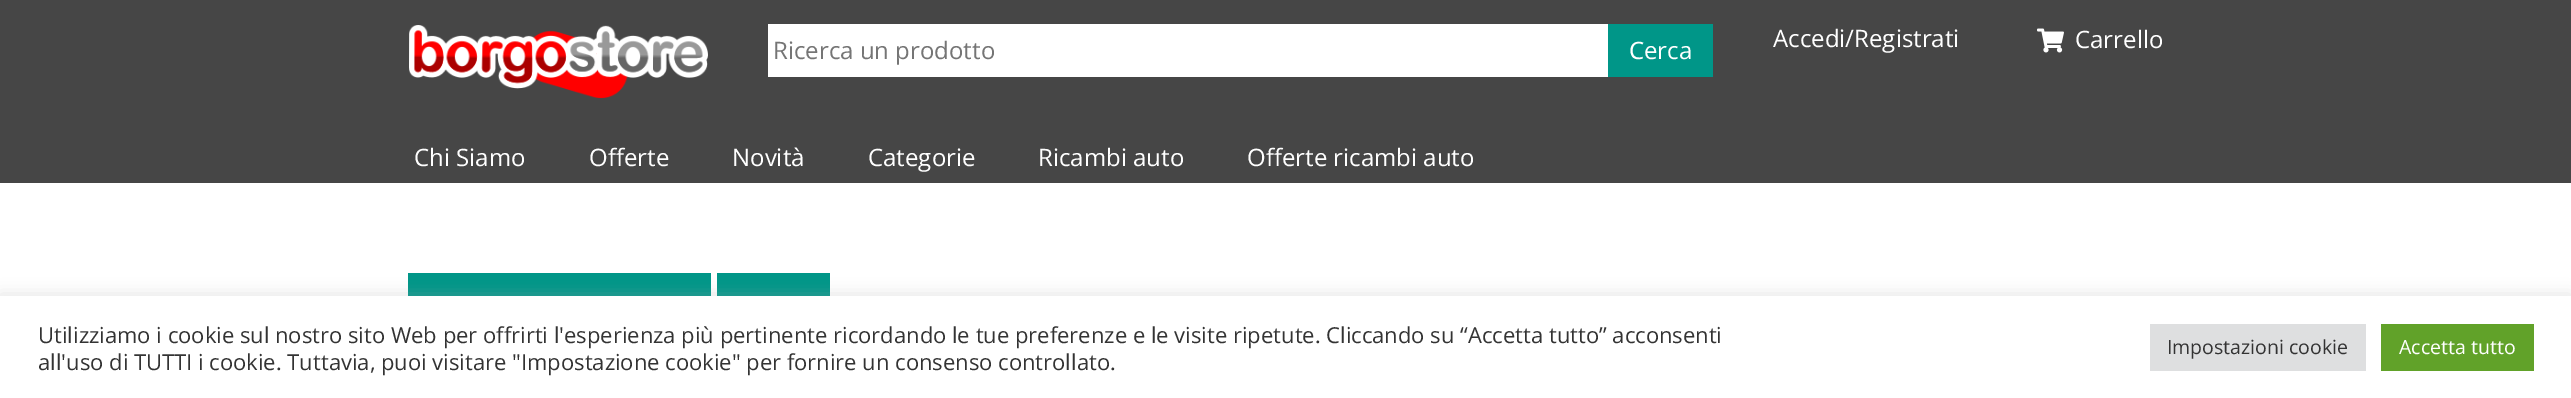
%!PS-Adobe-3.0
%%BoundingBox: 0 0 2571 398
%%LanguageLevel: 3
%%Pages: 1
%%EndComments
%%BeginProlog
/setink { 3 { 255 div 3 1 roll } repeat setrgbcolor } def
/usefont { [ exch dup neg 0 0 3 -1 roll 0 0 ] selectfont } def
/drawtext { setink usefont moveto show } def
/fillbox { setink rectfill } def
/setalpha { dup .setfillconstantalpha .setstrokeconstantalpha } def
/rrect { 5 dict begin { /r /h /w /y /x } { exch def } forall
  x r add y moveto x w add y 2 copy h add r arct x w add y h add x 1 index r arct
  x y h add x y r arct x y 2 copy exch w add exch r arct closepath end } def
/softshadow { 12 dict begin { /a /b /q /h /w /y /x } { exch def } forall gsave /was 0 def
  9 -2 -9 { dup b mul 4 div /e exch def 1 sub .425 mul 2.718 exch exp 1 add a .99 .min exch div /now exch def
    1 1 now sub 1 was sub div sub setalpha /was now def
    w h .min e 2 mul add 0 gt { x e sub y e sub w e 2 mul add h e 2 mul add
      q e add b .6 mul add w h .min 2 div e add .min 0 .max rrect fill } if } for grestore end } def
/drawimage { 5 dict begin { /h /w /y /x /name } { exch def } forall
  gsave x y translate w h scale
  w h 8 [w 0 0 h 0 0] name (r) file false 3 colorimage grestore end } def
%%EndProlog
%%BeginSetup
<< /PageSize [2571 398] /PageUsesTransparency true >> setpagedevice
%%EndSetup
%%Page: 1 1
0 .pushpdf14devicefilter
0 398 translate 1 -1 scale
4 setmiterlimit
0 0 2571 398 255 255 255 fillbox
0 0 2571 183 70 70 70 fillbox
(assets/img1.rgb) 409 25 299 74 drawimage
768 24 840 53 255 255 255 fillbox
(Ricerca un prodotto) 773 59 /OpenSans-Regular 24 117 117 117 drawtext
1608 24 105 53 0 150 136 fillbox
(C) 1629 59 /NotoSans-Regular 24 255 255 255 drawtext
(erca) 1644 59 /OpenSans-Regular 24 255 255 255 drawtext
(Accedi/Registrati) 1773 47 /OpenSans-Regular 24 255 255 255 drawtext
(assets/img2.rgb) 2037 28 27 25 drawimage
(Carrello) 2075 48 /OpenSans-Regular 24 255 255 255 drawtext
(Chi Siamo) 414 166 /OpenSans-Regular 24 255 255 255 drawtext
(Offerte) 589 166 /OpenSans-Regular 24 255 255 255 drawtext
(Novità) 732 166 /OpenSans-Regular 24 255 255 255 drawtext
(Categorie) 868 166 /OpenSans-Regular 24 255 255 255 drawtext
(Ricambi auto) 1038 166 /OpenSans-Regular 24 255 255 255 drawtext
(Offerte ricambi auto) 1247 166 /OpenSans-Regular 24 255 255 255 drawtext
408 273 303 23 0 150 136 fillbox
717 273 113 23 0 150 136 fillbox
172 171 171 setink
0 294 2571 104 0 7.5 0.3 softshadow
0 296 2571 102 255 255 255 fillbox
(Utilizziamo i cookie sul nostro sito Web per offrirti l'esperienza più pertinente ricordando le tue preferenze e le visite ripetute. Cliccando su “Accetta tutto” acconsenti) 38 343 /OpenSans-Regular 22 51 51 51 drawtext
(all'uso di TUTTI i cookie. Tuttavia, puoi visitare "Impostazione cookie" per fornire un consenso controllato.) 38 370 /OpenSans-Regular 22 51 51 51 drawtext
2150 324 216 47 222 223 224 fillbox
(Impostazioni cookie) 2167 354 /OpenSans-Regular 19.5 51 51 51 drawtext
2381 324 153 47 97 162 41 fillbox
(Accetta tutto) 2399 354 /OpenSans-Regular 19.5 255 255 255 drawtext
.poppdf14devicefilter showpage
%%EOF
